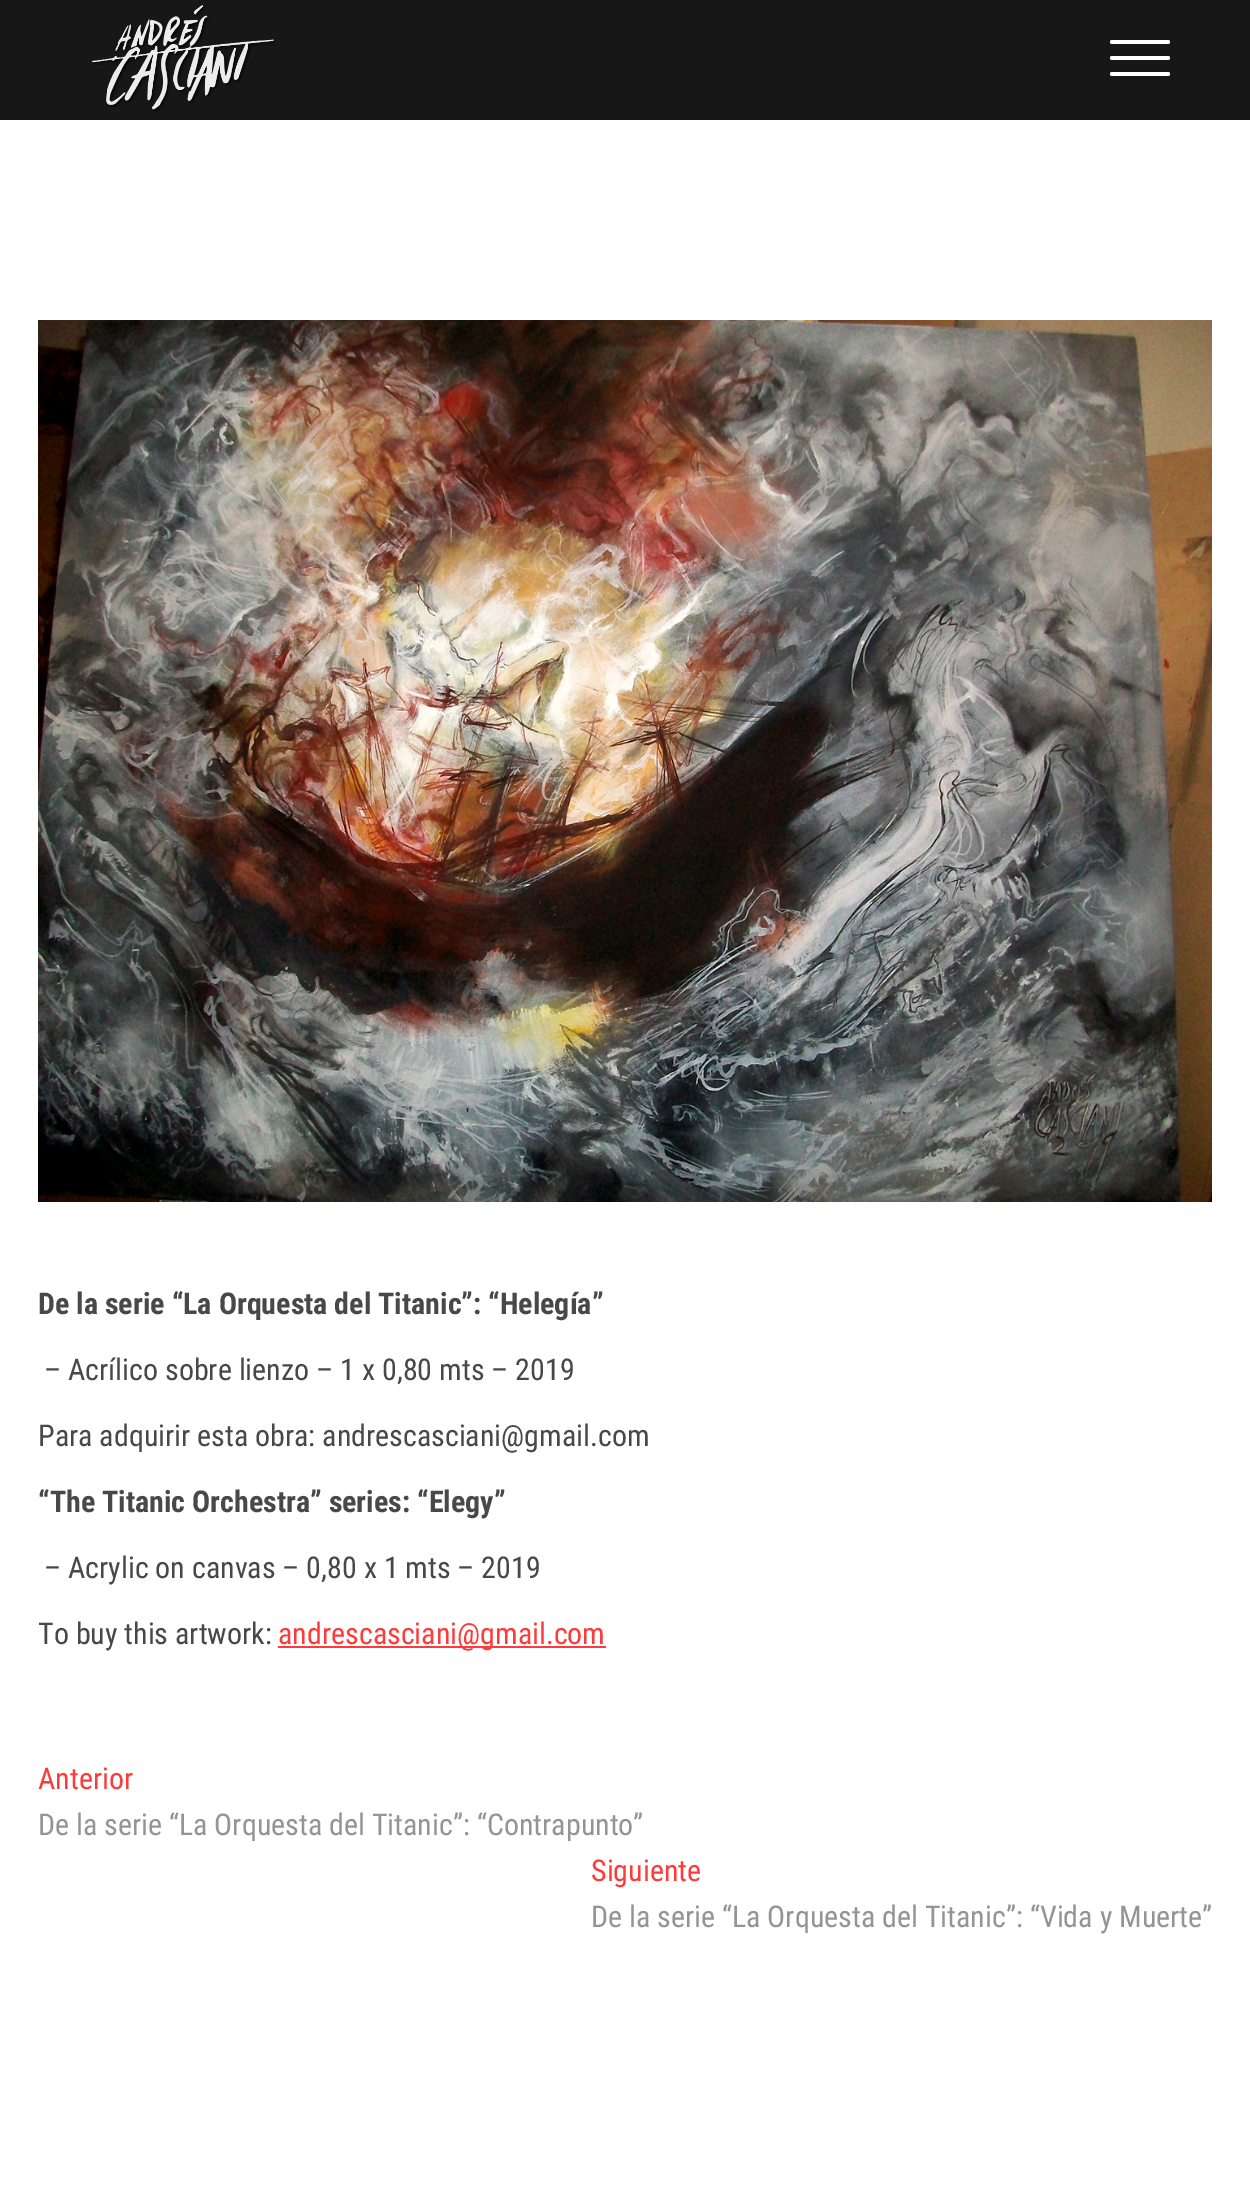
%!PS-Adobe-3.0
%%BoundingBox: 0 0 1250 2197
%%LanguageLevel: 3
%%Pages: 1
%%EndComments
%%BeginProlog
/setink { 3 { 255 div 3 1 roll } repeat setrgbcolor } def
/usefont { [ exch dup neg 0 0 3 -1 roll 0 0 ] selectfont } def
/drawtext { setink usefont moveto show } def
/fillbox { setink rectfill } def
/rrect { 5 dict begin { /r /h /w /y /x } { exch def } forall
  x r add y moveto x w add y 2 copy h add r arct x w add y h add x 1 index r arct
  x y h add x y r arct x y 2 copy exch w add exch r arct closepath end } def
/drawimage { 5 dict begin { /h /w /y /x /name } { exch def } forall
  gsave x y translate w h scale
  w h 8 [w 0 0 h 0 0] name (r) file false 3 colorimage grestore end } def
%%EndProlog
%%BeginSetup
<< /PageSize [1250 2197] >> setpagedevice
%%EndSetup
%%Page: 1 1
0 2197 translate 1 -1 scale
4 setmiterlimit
0 0 1250 2197 255 255 255 fillbox
0 0 1250 120 23 23 23 fillbox
(assets/img1.rgb) 91 5 184 107 drawimage
255 255 255 setink
1110 56 60 4 2 rrect fill
1110 40 60 4 2 rrect fill
1110 72 60 4 2 rrect fill
(assets/img2.rgb) 38 320 1174 882 drawimage
(De la serie “La Orquesta del Titanic”: “Helegía”) 38 1314 /RobotoCondensed-Bold 30 72 72 72 drawtext
(– Acrílico sobre lienzo – 1 x 0,80 mts – 2019) 44 1380 /RobotoCondensed-Regular 30 72 72 72 drawtext
(Para adquirir esta obra: andrescasciani@gmail.com) 38 1446 /RobotoCondensed-Regular 30 72 72 72 drawtext
(“The Titanic Orchestra” series: “Elegy”) 38 1512 /RobotoCondensed-Bold 30 72 72 72 drawtext
(– Acrylic on canvas – 0,80 x 1 mts – 2019) 44 1578 /RobotoCondensed-Regular 30 72 72 72 drawtext
(To buy this artwork:) 38 1644 /RobotoCondensed-Regular 30 72 72 72 drawtext
278 1646 328 2 255 58 58 fillbox
(andrescasciani@gmail.com) 278 1644 /RobotoCondensed-Regular 30 255 58 58 drawtext
(Anterior) 38 1789 /RobotoCondensed-Regular 30 255 58 58 drawtext
(De la serie “La Orquesta del Titanic”: “Contrapunto”) 38 1835 /RobotoCondensed-Regular 30 148 148 148 drawtext
(Siguiente) 591 1881 /RobotoCondensed-Regular 30 255 58 58 drawtext
(De la serie “La Orquesta del Titanic”: “Vida y Muerte”) 591 1927 /RobotoCondensed-Regular 30 148 148 148 drawtext
showpage
%%EOF
